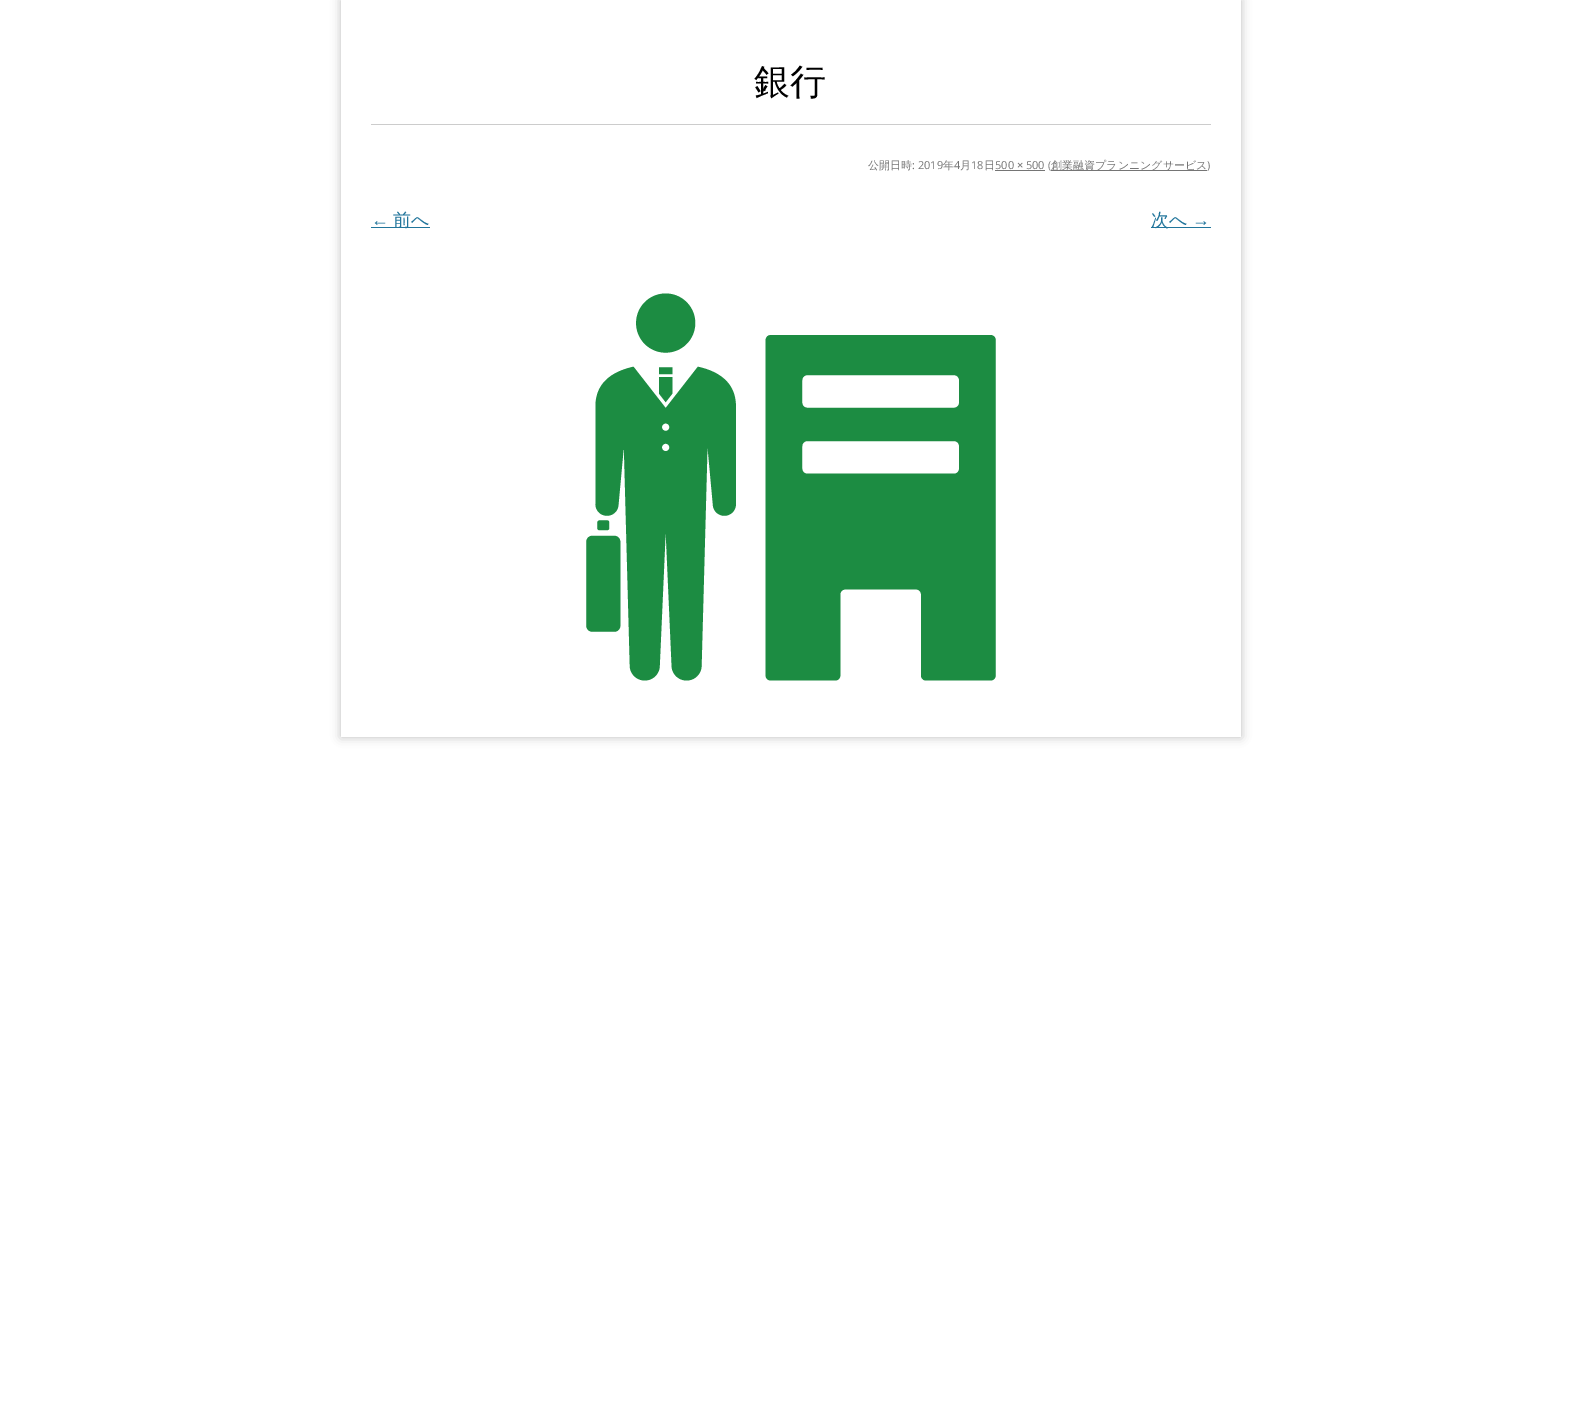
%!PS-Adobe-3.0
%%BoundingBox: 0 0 1581 1411
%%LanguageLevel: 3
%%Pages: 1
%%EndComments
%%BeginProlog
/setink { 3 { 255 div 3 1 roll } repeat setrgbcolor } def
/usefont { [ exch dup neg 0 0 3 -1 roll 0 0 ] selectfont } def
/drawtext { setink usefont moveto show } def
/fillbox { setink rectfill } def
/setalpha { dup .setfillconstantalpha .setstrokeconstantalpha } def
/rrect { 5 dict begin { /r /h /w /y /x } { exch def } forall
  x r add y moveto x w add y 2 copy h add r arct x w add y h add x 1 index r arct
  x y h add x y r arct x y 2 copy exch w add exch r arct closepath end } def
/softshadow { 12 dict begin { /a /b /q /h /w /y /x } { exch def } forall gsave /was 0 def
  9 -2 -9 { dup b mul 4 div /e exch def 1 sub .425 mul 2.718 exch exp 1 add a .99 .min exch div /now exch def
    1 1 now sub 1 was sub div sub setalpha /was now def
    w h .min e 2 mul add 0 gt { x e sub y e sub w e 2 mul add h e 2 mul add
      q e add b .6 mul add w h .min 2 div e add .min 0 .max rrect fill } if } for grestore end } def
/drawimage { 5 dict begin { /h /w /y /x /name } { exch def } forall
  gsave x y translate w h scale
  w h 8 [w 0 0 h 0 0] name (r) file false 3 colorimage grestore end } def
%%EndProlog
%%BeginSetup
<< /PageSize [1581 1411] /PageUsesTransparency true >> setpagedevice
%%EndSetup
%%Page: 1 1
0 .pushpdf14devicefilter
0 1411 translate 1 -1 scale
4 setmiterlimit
0 0 1581 1411 255 255 255 fillbox
gsave
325 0 moveto 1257 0 lineto 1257 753 lineto 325 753 lineto closepath 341 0 moveto 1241 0 lineto 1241 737 lineto 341 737 lineto closepath eoclip newpath
0 0 0 setink
341 0 900 737 0 5 0.25 softshadow
grestore
371 124 840 1 204 204 204 fillbox
(銀行) 754 94 /WenQuanYiZenHei-Medium 36 0 0 0 drawtext
(公開日時) 868 169 /WenQuanYiZenHei-Medium 11 117 117 117 drawtext
(: 2019) 912 169 /OpenSans-Regular 11 117 117 117 drawtext
(年) 943 169 /WenQuanYiZenHei-Medium 11 117 117 117 drawtext
(4) 954 169 /OpenSans-Regular 11 117 117 117 drawtext
(月) 960 169 /WenQuanYiZenHei-Medium 11 117 117 117 drawtext
(18) 971 169 /OpenSans-Regular 11 117 117 117 drawtext
(日) 984 169 /WenQuanYiZenHei-Medium 11 117 117 117 drawtext
995 170 50 1 117 117 117 fillbox
(500 × 500 \() 995 169 /OpenSans-Regular 11 117 117 117 drawtext
1051 170 156 1 117 117 117 fillbox
(創業融資プランニングサービス) 1051 169 /WenQuanYiZenHei-Medium 11 117 117 117 drawtext
(\)) 1207 169 /OpenSans-Regular 11 117 117 117 drawtext
(←) 371 226 /LiberationSans-Regular 18 33 117 155 drawtext
371 227 59 1 33 117 155 fillbox
(前へ) 393 226 /WenQuanYiZenHei-Medium 18 33 117 155 drawtext
1151 227 60 1 33 117 155 fillbox
(次へ) 1151 226 /WenQuanYiZenHei-Medium 18 33 117 155 drawtext
(→) 1192 226 /LiberationSans-Regular 18 33 117 155 drawtext
(assets/img1.rgb) 586 293 410 388 drawimage
.poppdf14devicefilter showpage
%%EOF
